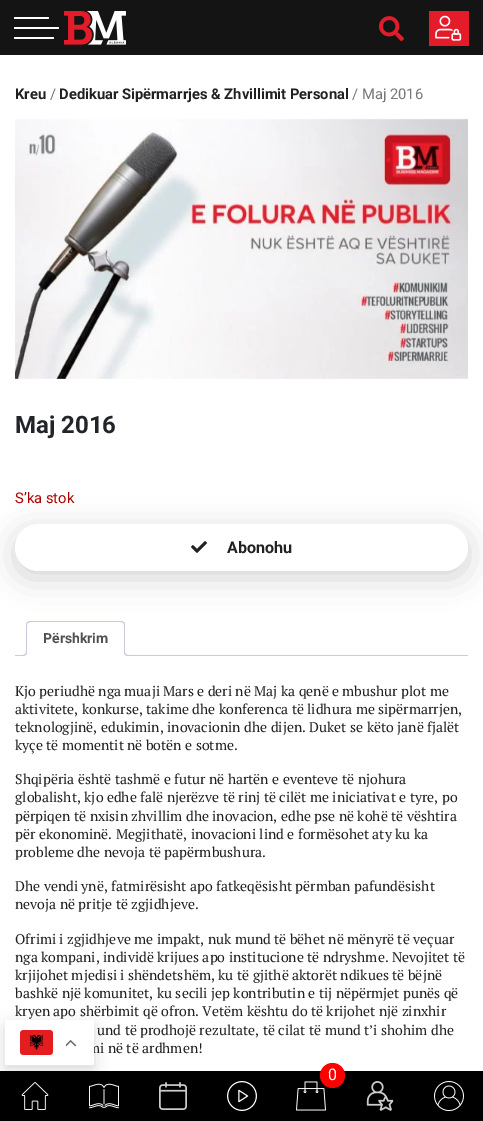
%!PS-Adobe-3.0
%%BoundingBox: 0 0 483 1121
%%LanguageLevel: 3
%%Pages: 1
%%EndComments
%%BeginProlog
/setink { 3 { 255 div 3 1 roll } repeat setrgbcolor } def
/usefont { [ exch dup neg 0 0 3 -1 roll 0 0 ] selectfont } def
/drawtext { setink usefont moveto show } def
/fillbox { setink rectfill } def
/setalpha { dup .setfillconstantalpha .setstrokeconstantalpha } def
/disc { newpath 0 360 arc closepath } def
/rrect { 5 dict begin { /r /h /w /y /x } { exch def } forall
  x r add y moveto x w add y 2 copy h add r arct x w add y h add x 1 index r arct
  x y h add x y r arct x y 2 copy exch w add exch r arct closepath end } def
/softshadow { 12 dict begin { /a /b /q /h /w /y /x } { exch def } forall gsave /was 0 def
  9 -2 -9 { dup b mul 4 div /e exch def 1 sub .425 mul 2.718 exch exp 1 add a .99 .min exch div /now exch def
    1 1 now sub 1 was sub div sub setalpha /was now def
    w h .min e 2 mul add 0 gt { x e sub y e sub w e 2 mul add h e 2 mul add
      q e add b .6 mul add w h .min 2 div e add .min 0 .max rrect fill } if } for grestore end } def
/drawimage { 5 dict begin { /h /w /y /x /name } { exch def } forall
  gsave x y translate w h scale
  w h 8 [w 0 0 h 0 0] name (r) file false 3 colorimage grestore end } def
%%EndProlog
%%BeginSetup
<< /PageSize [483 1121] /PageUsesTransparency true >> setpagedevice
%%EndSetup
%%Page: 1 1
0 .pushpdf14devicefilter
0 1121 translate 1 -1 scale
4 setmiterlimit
0 0 483 1121 255 255 255 fillbox
0 0 483 55 20 20 20 fillbox
255 255 255 setink
14 17 35 2 1 rrect fill
14 27 45 2 1 rrect fill
14 37 40 2 1 rrect fill
(assets/img1.rgb) 64 11 62 34 drawimage
(assets/img2.rgb) 379 16 25 26 drawimage
429 11 40 35 228 28 41 fillbox
(assets/img3.rgb) 435 15 27 26 drawimage
(Kreu) 15 99 /Roboto-Bold 14.75 33 33 33 drawtext
(/) 50 99 /Roboto-Regular 14.75 118 118 118 drawtext
(Dedikuar Sipërmarrjes & Zhvillimit Personal) 59 99 /Roboto-Bold 14.75 33 33 33 drawtext
(/ Maj 2016) 352 99 /Roboto-Regular 14.75 118 118 118 drawtext
(assets/img4.rgb) 15 118 453 261 drawimage
(Maj 2016) 15 433 /Roboto-Bold 24 33 37 41 drawtext
(S’ka stok) 15 503 /Roboto-Regular 14.75 170 0 0 drawtext
0 0 0 setink
15 531 453 47 23.5 15.5 0.17 softshadow
255 255 255 setink
15 524 453 47 23.5 rrect fill
(assets/img5.rgb) 191 541 16 12 drawimage
(Abonohu) 227 553 /Roboto-Bold 16 33 33 33 drawtext
15 655 453 1 207 200 216 fillbox
255 255 255 setink
30 621 moveto 121 621 lineto 123 621 125 623 125 625 curveto 125 656 lineto 26 656 lineto 26 625 lineto 26 623 28 621 30 621 curveto closepath fill
207 200 216 setink
30 621 moveto 27 622 lineto 28 623 lineto 30 622 lineto 121 622 lineto 123 623 lineto 124 622 lineto 121 621 lineto closepath fill
125 656 moveto 125 625 lineto 125 624 124.5 623 124 622 curveto 123 623 lineto 124 623 124 624 124 625 curveto 124 655 lineto closepath fill
255 255 255 setink
125 656 moveto 124 655 lineto 27 655 lineto 26 656 lineto closepath fill
207 200 216 setink
26 656 moveto 27 655 lineto 27 625 lineto 27 624 27 623 28 623 curveto 27 622 lineto 26.5 623 26 624 26 625 curveto closepath fill
(Përshkrim) 43 643 /Roboto-Bold 14 81 81 81 drawtext
gsave
15 621 453 35 rectclip
255 255 255 setink
24 656 moveto 24 658 lineto 27.5 658 29 656.5 29 653 curveto 27 653 lineto 26.5 654.5 25.5 655.5 24 656 curveto closepath fill
grestore
207 200 216 setink
22 651 moveto 27 651 lineto 27 654.5 25.5 656 22 656 curveto closepath 22 651 moveto 26 651 lineto 26 654 25 655 22 655 curveto closepath eofill
gsave
15 621 453 35 rectclip
255 255 255 setink
122 653 moveto 122 656.5 123.5 658 127 658 curveto 127 656 lineto 125.5 655.5 124.5 654.5 124 653 curveto closepath fill
grestore
124 651 moveto 129 651 lineto 129 656 lineto 126.5 656 124 655 124 652 curveto closepath 125 651 moveto 129 651 lineto 129 655 lineto 127 655 125 654.5 125 652 curveto closepath eofill
(Kjo periudhë nga muaji Mars e deri në Maj ka qenë e mbushur plot me) 15 696 /PTSerif-Regular 14 33 33 33 drawtext
(aktivitete, konkurse, takime dhe konferenca të lidhura me sipërmarrjen,) 15 714 /PTSerif-Regular 14 33 33 33 drawtext
(teknologjinë, edukimin, inovacionin dhe dijen. Duket se këto janë fjalët) 15 732 /PTSerif-Regular 14 33 33 33 drawtext
(kyçe të momentit në botën e sotme.) 15 750 /PTSerif-Regular 14 33 33 33 drawtext
(Shqipëria është tashmë e futur në hartën e eventeve të njohura) 15 784 /PTSerif-Regular 14 33 33 33 drawtext
(globalisht, kjo edhe falë njerëzve të rinj të cilët me iniciativat e tyre, po) 15 802 /PTSerif-Regular 14 33 33 33 drawtext
(përpiqen të nxisin zhvillim dhe inovacion, edhe pse në kohë të vështira) 15 821 /PTSerif-Regular 14 33 33 33 drawtext
(për ekonominë. Megjithatë, inovacioni lind e formësohet aty ku ka) 15 839 /PTSerif-Regular 14 33 33 33 drawtext
(probleme dhe nevoja të papërmbushura.) 15 857 /PTSerif-Regular 14 33 33 33 drawtext
(Dhe vendi ynë, fatmirësisht apo fatkeqësisht përmban pafundësisht) 15 891 /PTSerif-Regular 14 33 33 33 drawtext
(nevoja në pritje të zgjidhjeve.) 15 909 /PTSerif-Regular 14 33 33 33 drawtext
(Ofrimi i zgjidhjeve me impakt, nuk mund të bëhet në mënyrë të veçuar) 15 944 /PTSerif-Regular 14 33 33 33 drawtext
(nga kompani, individë krijues apo institucione të ndryshme. Nevojitet të) 15 962 /PTSerif-Regular 14 33 33 33 drawtext
(krjijohet mjedisi i shëndetshëm, ku të gjithë aktorët ndikues të bëjnë) 15 980 /PTSerif-Regular 14 33 33 33 drawtext
(bashkë një komunitet, ku secili jep kontributin e tij nëpërmjet punës që) 15 998 /PTSerif-Regular 14 33 33 33 drawtext
(kryen apo shërbimit që ofron. Vetëm kështu do të krijohet një zinxhir) 15 1016 /PTSerif-Regular 14 33 33 33 drawtext
(und të prodhojë rezultate, të cilat të mund t’i shohim dhe) 97 1035 /PTSerif-Regular 14 33 33 33 drawtext
(mi në të ardhmen!) 88 1053 /PTSerif-Regular 14 33 33 33 drawtext
0 1071 483 50 0 0 0 fillbox
(assets/img9.rgb) 21 1082 28 28 drawimage
(assets/img10.rgb) 89 1083 30 26 drawimage
5 1025 89 45 2 7.5 0.15 softshadow
255 255 255 setink
5 1020 89 45 2 rrect fill
(assets/img6.rgb) 20 1030 33 25 drawimage
(assets/img7.rgb) 66 1040 11 7 drawimage
(assets/img8.rgb) 296 1081 30 30 drawimage
255 0 0 setink
332.5 1075.5 12.5 disc fill
(0) 328 1080 /Roboto-Regular 16 255 255 255 drawtext
(assets/img11.rgb) 159 1082 28 28 drawimage
(assets/img12.rgb) 227 1081 30 30 drawimage
(assets/img13.rgb) 366 1081 28 30 drawimage
(assets/img14.rgb) 434 1081 30 30 drawimage
.poppdf14devicefilter showpage
%%EOF
